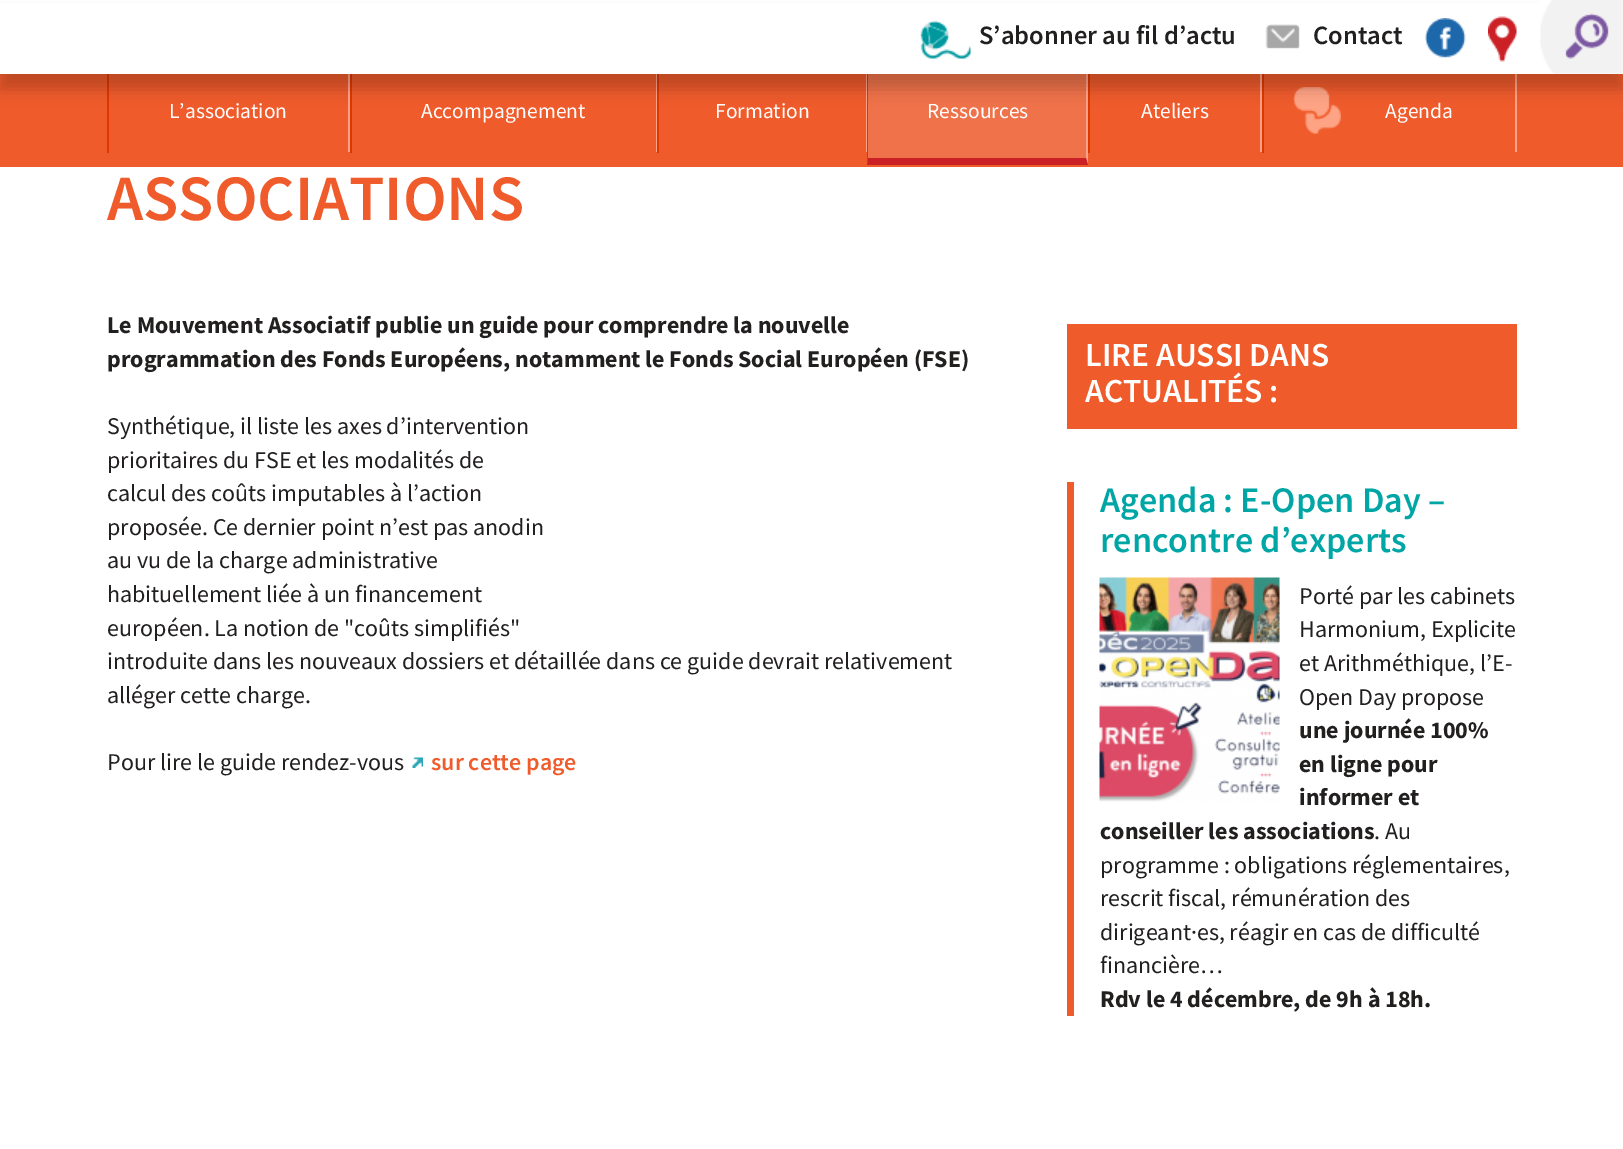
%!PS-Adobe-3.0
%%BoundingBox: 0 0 1623 1149
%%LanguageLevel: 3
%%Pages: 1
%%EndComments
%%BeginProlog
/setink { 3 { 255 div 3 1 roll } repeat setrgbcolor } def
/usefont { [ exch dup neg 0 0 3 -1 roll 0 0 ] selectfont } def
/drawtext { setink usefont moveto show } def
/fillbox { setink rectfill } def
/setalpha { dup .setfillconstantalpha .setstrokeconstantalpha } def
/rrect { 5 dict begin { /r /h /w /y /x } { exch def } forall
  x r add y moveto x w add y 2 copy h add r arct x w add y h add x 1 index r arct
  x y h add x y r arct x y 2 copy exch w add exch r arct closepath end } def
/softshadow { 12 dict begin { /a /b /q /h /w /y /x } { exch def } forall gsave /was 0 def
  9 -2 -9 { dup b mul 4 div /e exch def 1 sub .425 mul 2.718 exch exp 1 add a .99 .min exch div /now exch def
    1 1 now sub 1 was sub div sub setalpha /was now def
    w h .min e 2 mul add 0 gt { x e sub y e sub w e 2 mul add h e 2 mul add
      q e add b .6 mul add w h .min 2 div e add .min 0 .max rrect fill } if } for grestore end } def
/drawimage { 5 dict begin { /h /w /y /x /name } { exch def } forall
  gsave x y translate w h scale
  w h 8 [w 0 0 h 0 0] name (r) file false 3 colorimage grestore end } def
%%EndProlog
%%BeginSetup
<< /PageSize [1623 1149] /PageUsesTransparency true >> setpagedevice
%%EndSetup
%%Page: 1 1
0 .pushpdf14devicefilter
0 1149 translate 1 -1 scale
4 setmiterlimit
0 0 1623 1149 255 255 255 fillbox
0 74 1623 93 239 91 43 fillbox
348 72 2 81 255 162 133 fillbox
107 72 2 81 222 55 0 fillbox
656 72 1 81 255 162 133 fillbox
350 72 2 81 222 55 0 fillbox
866 72 1 81 255 162 133 fillbox
657 72 2 81 222 55 0 fillbox
867 74 221 91 239 114 74 fillbox
255 162 133 setink
1088 72 moveto 1088 165 lineto 1086 158 lineto 1086 72 lineto closepath fill
202 32 38 setink
1088 165 moveto 867 165 lineto 868 158 lineto 1086 158 lineto closepath fill
222 55 0 setink
867 165 moveto 867 72 lineto 868 72 lineto 868 158 lineto closepath fill
1260 72 2 81 255 162 133 fillbox
1088 72 2 81 222 55 0 fillbox
(assets/img6.rgb) 1293 87 48 47 drawimage
1515 72 2 81 255 162 133 fillbox
1262 72 2 81 222 55 0 fillbox
0 0 0 setink
0 15 1623 74 0 7.5 0.2 softshadow
0 3 1623 71 255 255 255 fillbox
(assets/img1.rgb) 920 20 51 39 drawimage
(S’abonner au fil d’actu) 979 44 /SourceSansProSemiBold-SemiBold 26.5 34 31 31 drawtext
(assets/img2.rgb) 1265 24 35 25 drawimage
(Contact) 1313 44 /SourceSansProSemiBold-SemiBold 26.5 34 31 31 drawtext
(assets/img3.rgb) 1425 18 41 40 drawimage
(assets/img4.rgb) 1488 16 29 46 drawimage
(assets/img5.rgb) 1540 0 83 74 drawimage
348 152 2 1 239 91 43 fillbox
(L’association) 169 118 /SourceSansPro-Regular 21.5 255 255 255 drawtext
656 152 1 1 239 91 43 fillbox
(Accompagnement) 421 118 /SourceSansPro-Regular 21.5 255 255 255 drawtext
866 152 1 1 239 91 43 fillbox
(Formation) 715 118 /SourceSansPro-Regular 21.5 255 255 255 drawtext
(Ressources) 927 118 /SourceSansPro-Regular 21.5 255 255 255 drawtext
1260 152 2 1 239 91 43 fillbox
(Ateliers) 1141 118 /SourceSansPro-Regular 21.5 255 255 255 drawtext
1515 152 2 1 239 91 43 fillbox
(Agenda) 1385 118 /SourceSansPro-Regular 21.5 255 255 255 drawtext
(ASSOCIATIONS) 107 220 /SourceSansProSemiBold-SemiBold 64.75 239 91 43 drawtext
(Le Mouvement Associatif publie un guide pour comprendre la nouvelle) 107 333 /SourceSansPro-Bold 24 34 31 31 drawtext
(programmation des Fonds Européens, notamment le Fonds Social Européen \(FSE\)) 107 367 /SourceSansPro-Bold 24 34 31 31 drawtext
(Synthétique, il liste les axes d’intervention) 107 434 /SourceSansPro-Regular 24 34 31 31 drawtext
(prioritaires du FSE et les modalités de) 107 468 /SourceSansPro-Regular 24 34 31 31 drawtext
(calcul des coûts imputables à l’action) 107 501 /SourceSansPro-Regular 24 34 31 31 drawtext
(proposée. Ce dernier point n’est pas anodin) 107 535 /SourceSansPro-Regular 24 34 31 31 drawtext
(au vu de la charge administrative) 107 568 /SourceSansPro-Regular 24 34 31 31 drawtext
(habituellement liée à un financement) 107 602 /SourceSansPro-Regular 24 34 31 31 drawtext
(européen. La notion de "coûts simplifiés") 107 636 /SourceSansPro-Regular 24 34 31 31 drawtext
(introduite dans les nouveaux dossiers et détaillée dans ce guide devrait relativement) 107 669 /SourceSansPro-Regular 24 34 31 31 drawtext
(alléger cette charge.) 107 703 /SourceSansPro-Regular 24 34 31 31 drawtext
(Pour lire le guide rendez-vous) 107 770 /SourceSansPro-Regular 24 34 31 31 drawtext
(assets/img7.rgb) 412 757 11 11 drawimage
(sur cette page) 431 770 /SourceSansProSemiBold-SemiBold 24 239 91 43 drawtext
1067 324 450 105 239 91 43 fillbox
(LIRE AUSSI DANS) 1085 366 /SourceSansProSemiBold-SemiBold 33.5 255 255 255 drawtext
(ACTUALITÉS :) 1085 402 /SourceSansProSemiBold-SemiBold 33.5 255 255 255 drawtext
1067 482 7 534 239 91 43 fillbox
(Agenda : E-Open Day –) 1100 512 /SourceSansProSemiBold-SemiBold 36 0 165 165 drawtext
(rencontre d’experts) 1100 552 /SourceSansProSemiBold-SemiBold 36 0 165 165 drawtext
(assets/img8.rgb) 1099 577 181 225 drawimage
(Porté par les cabinets) 1299 604 /SourceSansPro-Regular 24 34 31 31 drawtext
(Harmonium, Explicite) 1299 637 /SourceSansPro-Regular 24 34 31 31 drawtext
(et Arithméthique, l’E-) 1299 671 /SourceSansPro-Regular 24 34 31 31 drawtext
(Open Day propose) 1299 705 /SourceSansPro-Regular 24 34 31 31 drawtext
(une journée 100%) 1299 738 /SourceSansPro-Bold 24 34 31 31 drawtext
(en ligne pour) 1299 772 /SourceSansPro-Bold 24 34 31 31 drawtext
(informer et) 1299 805 /SourceSansPro-Bold 24 34 31 31 drawtext
(conseiller les associations) 1100 839 /SourceSansPro-Bold 24 34 31 31 drawtext
(. Au) 1374 839 /SourceSansPro-Regular 24 34 31 31 drawtext
(programme : obligations réglementaires,) 1100 873 /SourceSansPro-Regular 24 34 31 31 drawtext
(rescrit fiscal, rémunération des) 1100 906 /SourceSansPro-Regular 24 34 31 31 drawtext
(dirigeant·es, réagir en cas de difficulté) 1100 940 /SourceSansPro-Regular 24 34 31 31 drawtext
(financière…) 1100 973 /SourceSansPro-Regular 24 34 31 31 drawtext
(Rdv le 4 décembre, de 9h à 18h.) 1100 1007 /SourceSansPro-Bold 24 34 31 31 drawtext
.poppdf14devicefilter showpage
%%EOF
